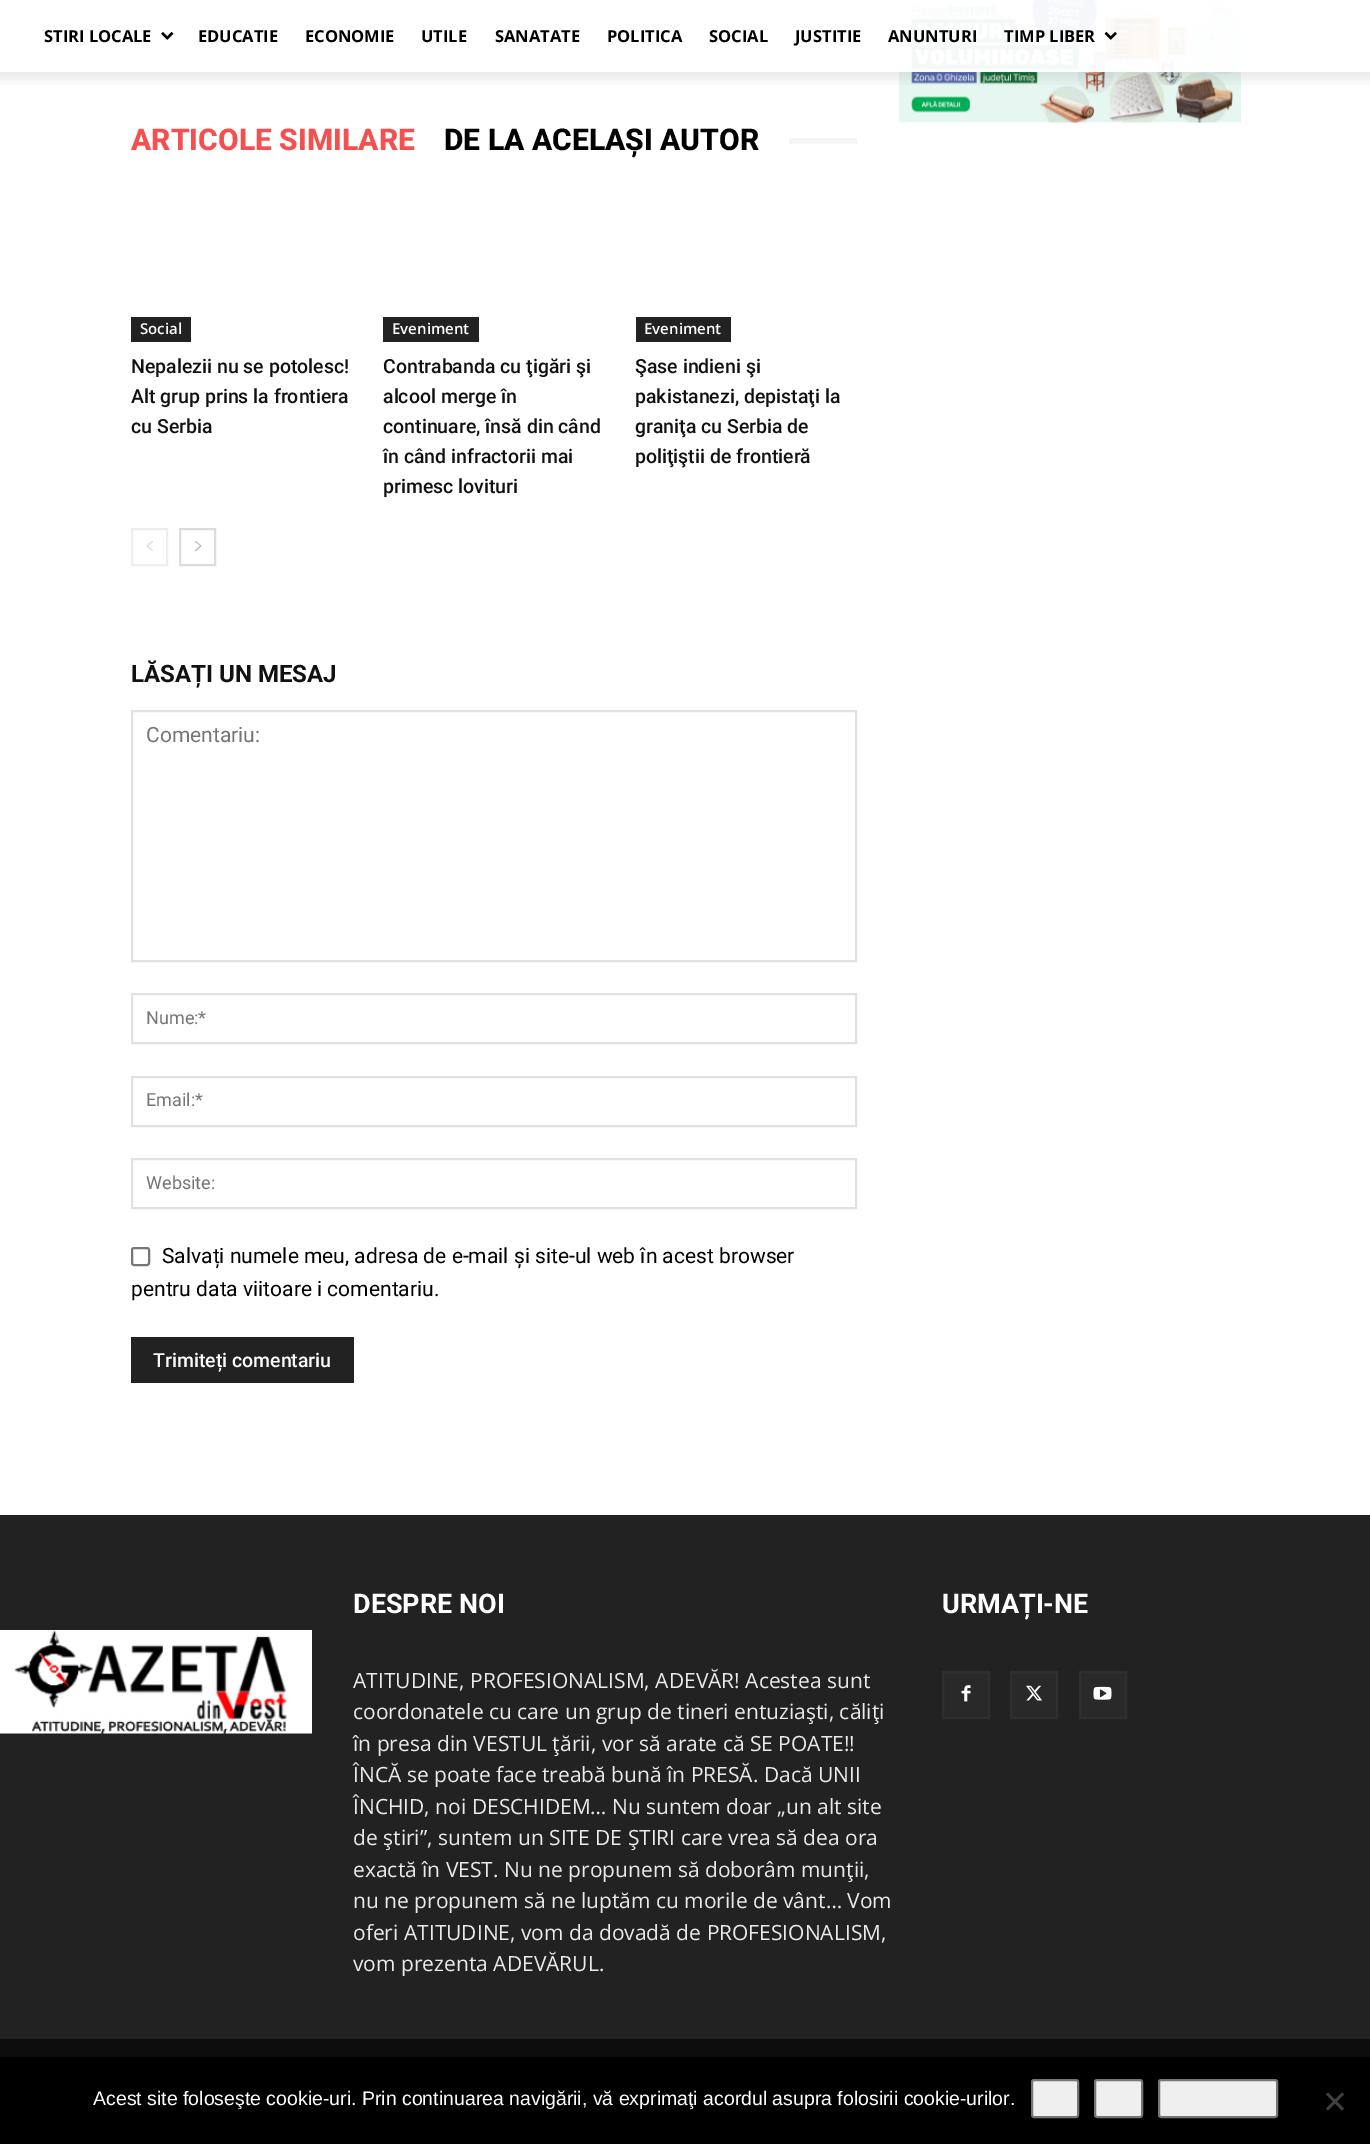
%!PS-Adobe-3.0
%%BoundingBox: 0 0 1370 2144
%%LanguageLevel: 3
%%Pages: 1
%%EndComments
%%BeginProlog
/setink { 3 { 255 div 3 1 roll } repeat setrgbcolor } def
/usefont { [ exch dup neg 0 0 3 -1 roll 0 0 ] selectfont } def
/drawtext { setink usefont moveto show } def
/fillbox { setink rectfill } def
/setalpha { dup .setfillconstantalpha .setstrokeconstantalpha } def
/rrect { 5 dict begin { /r /h /w /y /x } { exch def } forall
  x r add y moveto x w add y 2 copy h add r arct x w add y h add x 1 index r arct
  x y h add x y r arct x y 2 copy exch w add exch r arct closepath end } def
/drawimage { 5 dict begin { /h /w /y /x /name } { exch def } forall
  gsave x y translate w h scale
  w h 8 [w 0 0 h 0 0] name (r) file false 3 colorimage grestore end } def
%%EndProlog
%%BeginSetup
<< /PageSize [1370 2144] /PageUsesTransparency true >> setpagedevice
%%EndSetup
%%Page: 1 1
0 .pushpdf14devicefilter
0 2144 translate 1 -1 scale
4 setmiterlimit
0 0 1370 2144 255 255 255 fillbox
(assets/img4.rgb) 899 0 342 124 drawimage
0.95 setalpha
899 0 342 72 255 255 255 fillbox
1 setalpha
(STIRI LOCALE) 44 42 /OpenSans-Bold 16.5 0 0 0 drawtext
(assets/img1.rgb) 161 32 13 8 drawimage
(EDUCATIE) 198 42 /OpenSans-Bold 16.5 0 0 0 drawtext
(ECONOMIE) 305 42 /OpenSans-Bold 16.5 0 0 0 drawtext
(UTILE) 421 42 /OpenSans-Bold 16.5 0 0 0 drawtext
(SANATATE) 495 42 /OpenSans-Bold 16.5 0 0 0 drawtext
(POLITICA) 607 42 /OpenSans-Bold 16.5 0 0 0 drawtext
(SOCIAL) 709 42 /OpenSans-Bold 16.5 0 0 0 drawtext
(JUSTITIE) 795 42 /OpenSans-Bold 16.5 0 0 0 drawtext
(ANUNTURI) 888 42 /OpenSans-Bold 16.5 0 0 0 drawtext
(TIMP LIBER) 1004 42 /OpenSans-Bold 16.5 0 0 0 drawtext
(assets/img2.rgb) 1104 32 13 8 drawimage
(assets/img3.rgb) 0 72 1370 13 drawimage
(ARTICOLE SIMILARE) 131 150 /Roboto-ExtraBold 30 244 80 80 drawtext
(DE LA ACELAȘI AUTOR) 444 150 /Roboto-ExtraBold 30 0 0 0 drawtext
789 138 68 6 245 245 245 fillbox
131 317 60 25 34 34 34 fillbox
(Social) 140 334 /OpenSans-SemiBold 15 255 255 255 drawtext
(Nepalezii nu se potolesc!) 131 373 /Roboto-Medium 19.5 17 17 17 drawtext
(Alt grup prins la frontiera) 131 403 /Roboto-Medium 19.5 17 17 17 drawtext
(cu Serbia) 131 433 /Roboto-Medium 19.5 17 17 17 drawtext
383 317 96 25 34 34 34 fillbox
(Eveniment) 392 334 /OpenSans-SemiBold 15 255 255 255 drawtext
(Contrabanda cu ţigări şi) 383 373 /Roboto-Medium 19.5 17 17 17 drawtext
(alcool merge în) 383 403 /Roboto-Medium 19.5 17 17 17 drawtext
(continuare, însă din când) 383 433 /Roboto-Medium 19.5 17 17 17 drawtext
(în când infractorii mai) 383 463 /Roboto-Medium 19.5 17 17 17 drawtext
(primesc lovituri) 383 493 /Roboto-Medium 19.5 17 17 17 drawtext
636 317 95 25 34 34 34 fillbox
(Eveniment) 644 334 /OpenSans-SemiBold 15 255 255 255 drawtext
(Şase indieni şi) 635 373 /Roboto-Medium 19.5 17 17 17 drawtext
(pakistanezi, depistaţi la) 635 403 /Roboto-Medium 19.5 17 17 17 drawtext
(graniţa cu Serbia de) 635 433 /Roboto-Medium 19.5 17 17 17 drawtext
(poliţiştii de frontieră) 635 463 /Roboto-Medium 19.5 17 17 17 drawtext
238 238 238 setink
2 setlinewidth
132 529 35 36 rectstroke
(assets/img5.rgb) 146 540 7 11 drawimage
220 220 220 setink
180 529 35 36 rectstroke
(assets/img6.rgb) 195 541 7 11 drawimage
(LĂSAȚI UN MESAJ) 131 682 /Roboto-Bold 24 17 17 17 drawtext
225 225 225 setink
132 711 724 250 rectstroke
(Comentariu:) 146 742 /Roboto-Regular 21 117 117 117 drawtext
225 225 225 setink
132 994 724 49 rectstroke
(Nume:*) 146 1024 /Roboto-Regular 18 117 117 117 drawtext
225 225 225 setink
132 1077 724 49 rectstroke
(Email:*) 146 1106 /Roboto-Regular 18 117 117 117 drawtext
225 225 225 setink
132 1159 724 49 rectstroke
(Website:) 146 1189 /Roboto-Regular 18 117 117 117 drawtext
118 118 118 setink
132 1248 17 17 2 rrect stroke
(Salvați numele meu, adresa de e-mail și site-ul web în acest browser) 162 1263 /Roboto-Regular 21 0 0 0 drawtext
(pentru data viitoare i comentariu.) 131 1296 /Roboto-Regular 21 0 0 0 drawtext
131 1337 223 46 34 34 34 fillbox
(Trimiteți comentariu) 153 1367 /Roboto-Medium 19.5 255 255 255 drawtext
0 1515 1370 524 34 34 34 fillbox
(DESPRE NOI) 353 1613 /Roboto-Bold 27 255 255 255 drawtext
(ATITUDINE, PROFESIONALISM, ADEVĂR! Acestea sunt) 353 1688 /OpenSans-Regular 21 234 234 234 drawtext
(coordonatele cu care un grup de tineri entuziaşti, căliţi) 353 1719 /OpenSans-Regular 21 234 234 234 drawtext
(în presa din VESTUL ţării, vor să arate că SE POATE!!) 353 1751 /OpenSans-Regular 21 234 234 234 drawtext
(ÎNCĂ se poate face treabă bună în PRESĂ. Dacă UNII) 353 1782 /OpenSans-Regular 21 234 234 234 drawtext
(ÎNCHID, noi DESCHIDEM… Nu suntem doar „un alt site) 353 1814 /OpenSans-Regular 21 234 234 234 drawtext
(de ştiri”, suntem un SITE DE ŞTIRI care vrea să dea ora) 353 1845 /OpenSans-Regular 21 234 234 234 drawtext
(exactă în VEST. Nu ne propunem să doborâm munţii,) 353 1877 /OpenSans-Regular 21 234 234 234 drawtext
(nu ne propunem să ne luptăm cu morile de vânt… Vom) 353 1908 /OpenSans-Regular 21 234 234 234 drawtext
(oferi ATITUDINE, vom da dovadă de PROFESIONALISM,) 353 1940 /OpenSans-Regular 21 234 234 234 drawtext
(vom prezenta ADEVĂRUL.) 353 1971 /OpenSans-Regular 21 234 234 234 drawtext
(URMAȚI-NE) 942 1613 /Roboto-Bold 27 255 255 255 drawtext
944 1673 44 44 41 41 41 fillbox
(assets/img7.rgb) 961 1685 10 17 drawimage
47 47 47 setink
943 1672 46 46 rectstroke
1012 1673 44 44 41 41 41 fillbox
(assets/img8.rgb) 1026 1685 16 16 drawimage
47 47 47 setink
1011 1672 46 46 rectstroke
1081 1673 44 44 41 41 41 fillbox
(assets/img9.rgb) 1093 1686 19 14 drawimage
47 47 47 setink
1080 1672 46 46 rectstroke
(assets/img10.rgb) 0 1630 312 104 drawimage
0 2039 1370 18 13 13 13 fillbox
0 2057 1370 87 0 0 0 fillbox
(Acest site foloseşte cookie-uri. Prin continuarea navigării, vă exprimaţi acordul asupra folosirii cookie-urilor.) 93 2105 /LiberationSans-Regular 19.5 255 255 255 drawtext
239 239 239 setink
1032 2080 46 37 2 rrect gsave fill grestore
118 118 118 setink
stroke
239 239 239 setink
1095 2080 47 37 2 rrect gsave fill grestore
118 118 118 setink
stroke
239 239 239 setink
1159 2080 118 37 2 rrect gsave fill grestore
118 118 118 setink
stroke
64 64 64 setink
1342 2092.5 moveto 1344 2094.5 lineto 1328 2110.5 lineto 1326 2108.5 lineto closepath fill
1326 2094.5 moveto 1328 2092.5 lineto 1344 2108.5 lineto 1342 2110.5 lineto closepath fill
.poppdf14devicefilter showpage
%%EOF
